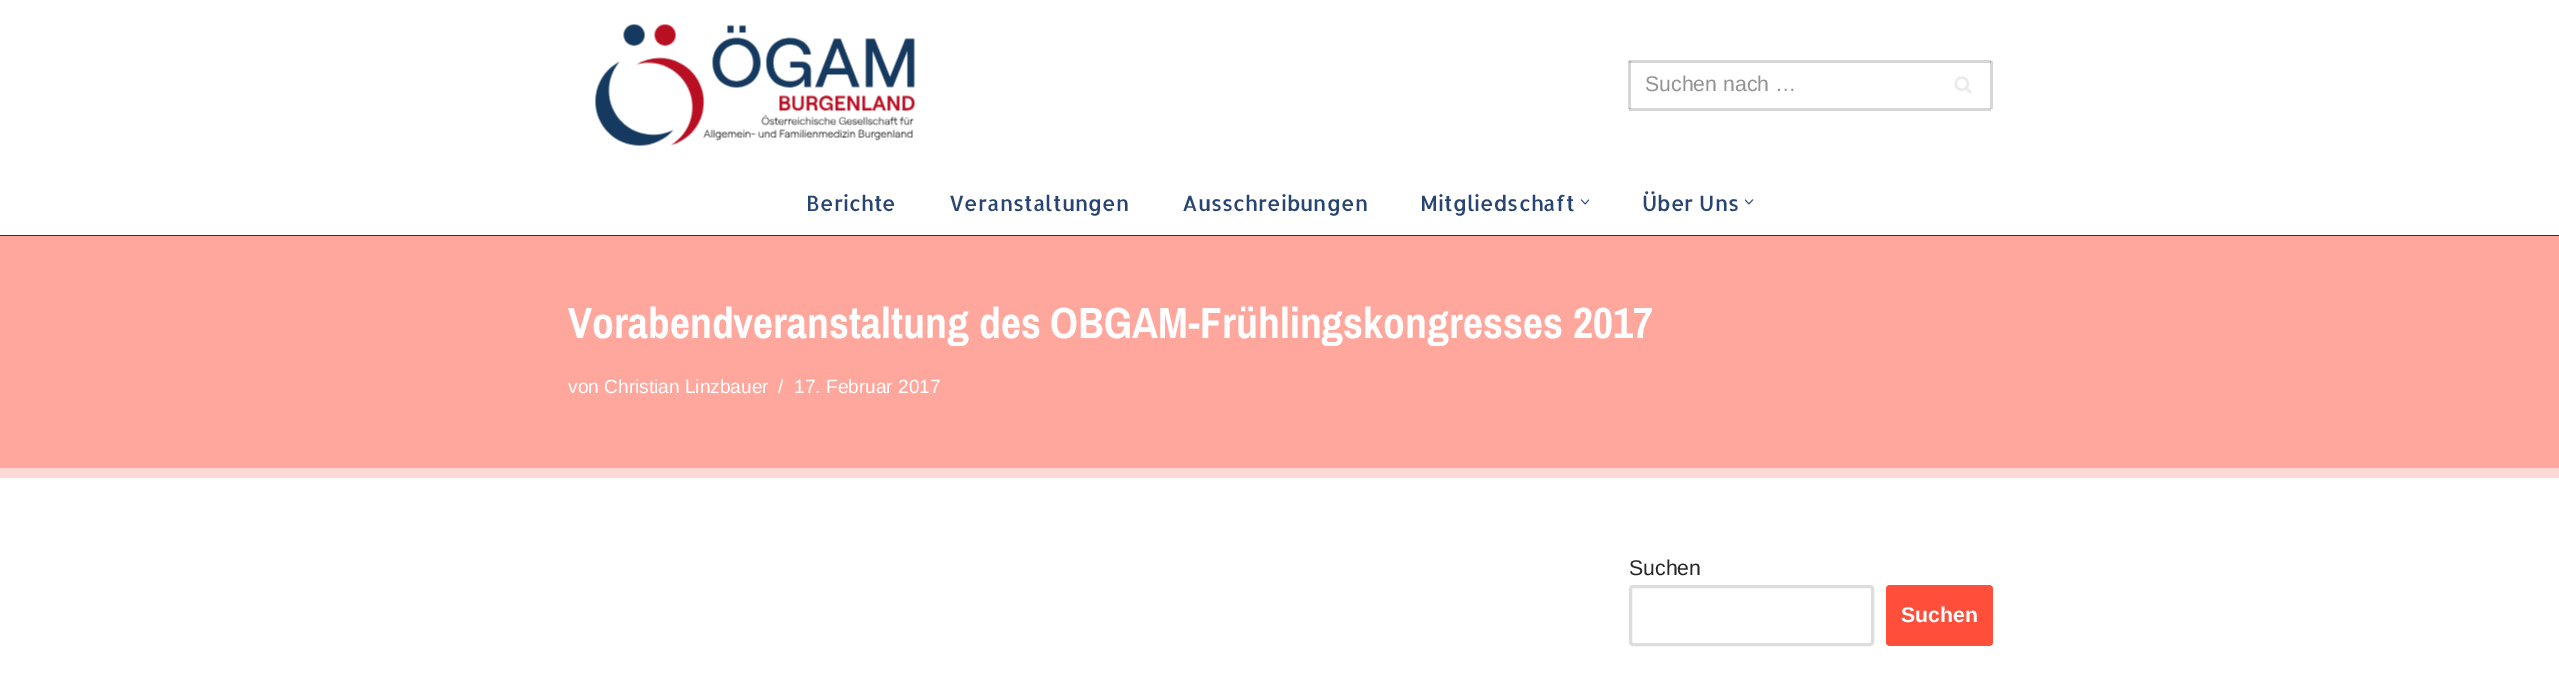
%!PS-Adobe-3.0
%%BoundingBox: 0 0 2559 688
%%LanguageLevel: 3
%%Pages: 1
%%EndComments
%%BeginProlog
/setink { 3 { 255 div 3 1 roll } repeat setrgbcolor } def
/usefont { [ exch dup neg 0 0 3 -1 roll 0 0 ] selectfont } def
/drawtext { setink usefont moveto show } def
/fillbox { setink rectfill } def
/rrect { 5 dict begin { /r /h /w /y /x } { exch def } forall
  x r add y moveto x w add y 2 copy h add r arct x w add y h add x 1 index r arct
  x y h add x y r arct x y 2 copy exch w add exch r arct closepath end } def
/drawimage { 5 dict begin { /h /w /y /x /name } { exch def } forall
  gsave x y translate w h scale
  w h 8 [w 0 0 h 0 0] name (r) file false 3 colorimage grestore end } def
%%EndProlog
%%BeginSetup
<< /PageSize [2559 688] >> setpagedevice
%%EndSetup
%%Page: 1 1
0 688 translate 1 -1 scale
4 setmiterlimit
0 0 2559 688 255 255 255 fillbox
1936 108 55 3 214 214 214 fillbox
1990 61 3 48 214 214 214 fillbox
1990 108 1 1 180 180 180 fillbox
1628 61 3 48 214 214 214 fillbox
0 235 2559 1 13 56 97 fillbox
(assets/img1.rgb) 594 24 321 122 drawimage
1629 60 362 3 214 214 214 fillbox
1629 61 2 2 180 180 180 fillbox
1629 108 307 3 214 214 214 fillbox
1629 108 2 1 180 180 180 fillbox
(Suchen nach …) 1645 91 /LiberationSans-Regular 21.25 147 147 147 drawtext
1990 61 1 2 180 180 180 fillbox
(assets/img2.rgb) 1954 76 18 18 drawimage
(Berichte) 806 211 /Allerta-Regular 21.25 39 68 114 drawtext
(Veranstaltungen) 949 211 /Allerta-Regular 21.25 39 68 114 drawtext
(Ausschreibungen) 1182 211 /Allerta-Regular 21.25 39 68 114 drawtext
(Mitgliedschaft) 1420 211 /Allerta-Regular 21.25 39 68 114 drawtext
(assets/img3.rgb) 1580 199 9 6 drawimage
(Über Uns) 1642 211 /Allerta-Regular 21.25 39 68 114 drawtext
(assets/img4.rgb) 1745 199 9 6 drawimage
0 236 2559 232 255 167 157 fillbox
0 468 2559 10 252 217 213 fillbox
(Vorabendveranstaltung des OBGAM-Frühlingskongresses 2017) 568 338 /ArchivoNarrow-Bold 43.75 255 255 255 drawtext
(von Christian Linzbauer) 568 393 /LiberationSans-Regular 19.1 255 255 255 drawtext
(/) 778 393 /LiberationSans-Regular 19.1 255 255 255 drawtext
(17. Februar 2017) 794 393 /LiberationSans-Regular 19.1 255 255 255 drawtext
(Suchen) 1629 575 /LiberationSans-Regular 21.25 39 38 38 drawtext
221 221 221 setink
3 setlinewidth
1630.5 586.5 242 58 2.5 rrect stroke
255 78 58 setink
1886 585 107 61 4 rrect fill
(Suchen) 1901 622 /LiberationSans-Bold 21.25 255 255 255 drawtext
showpage
%%EOF
